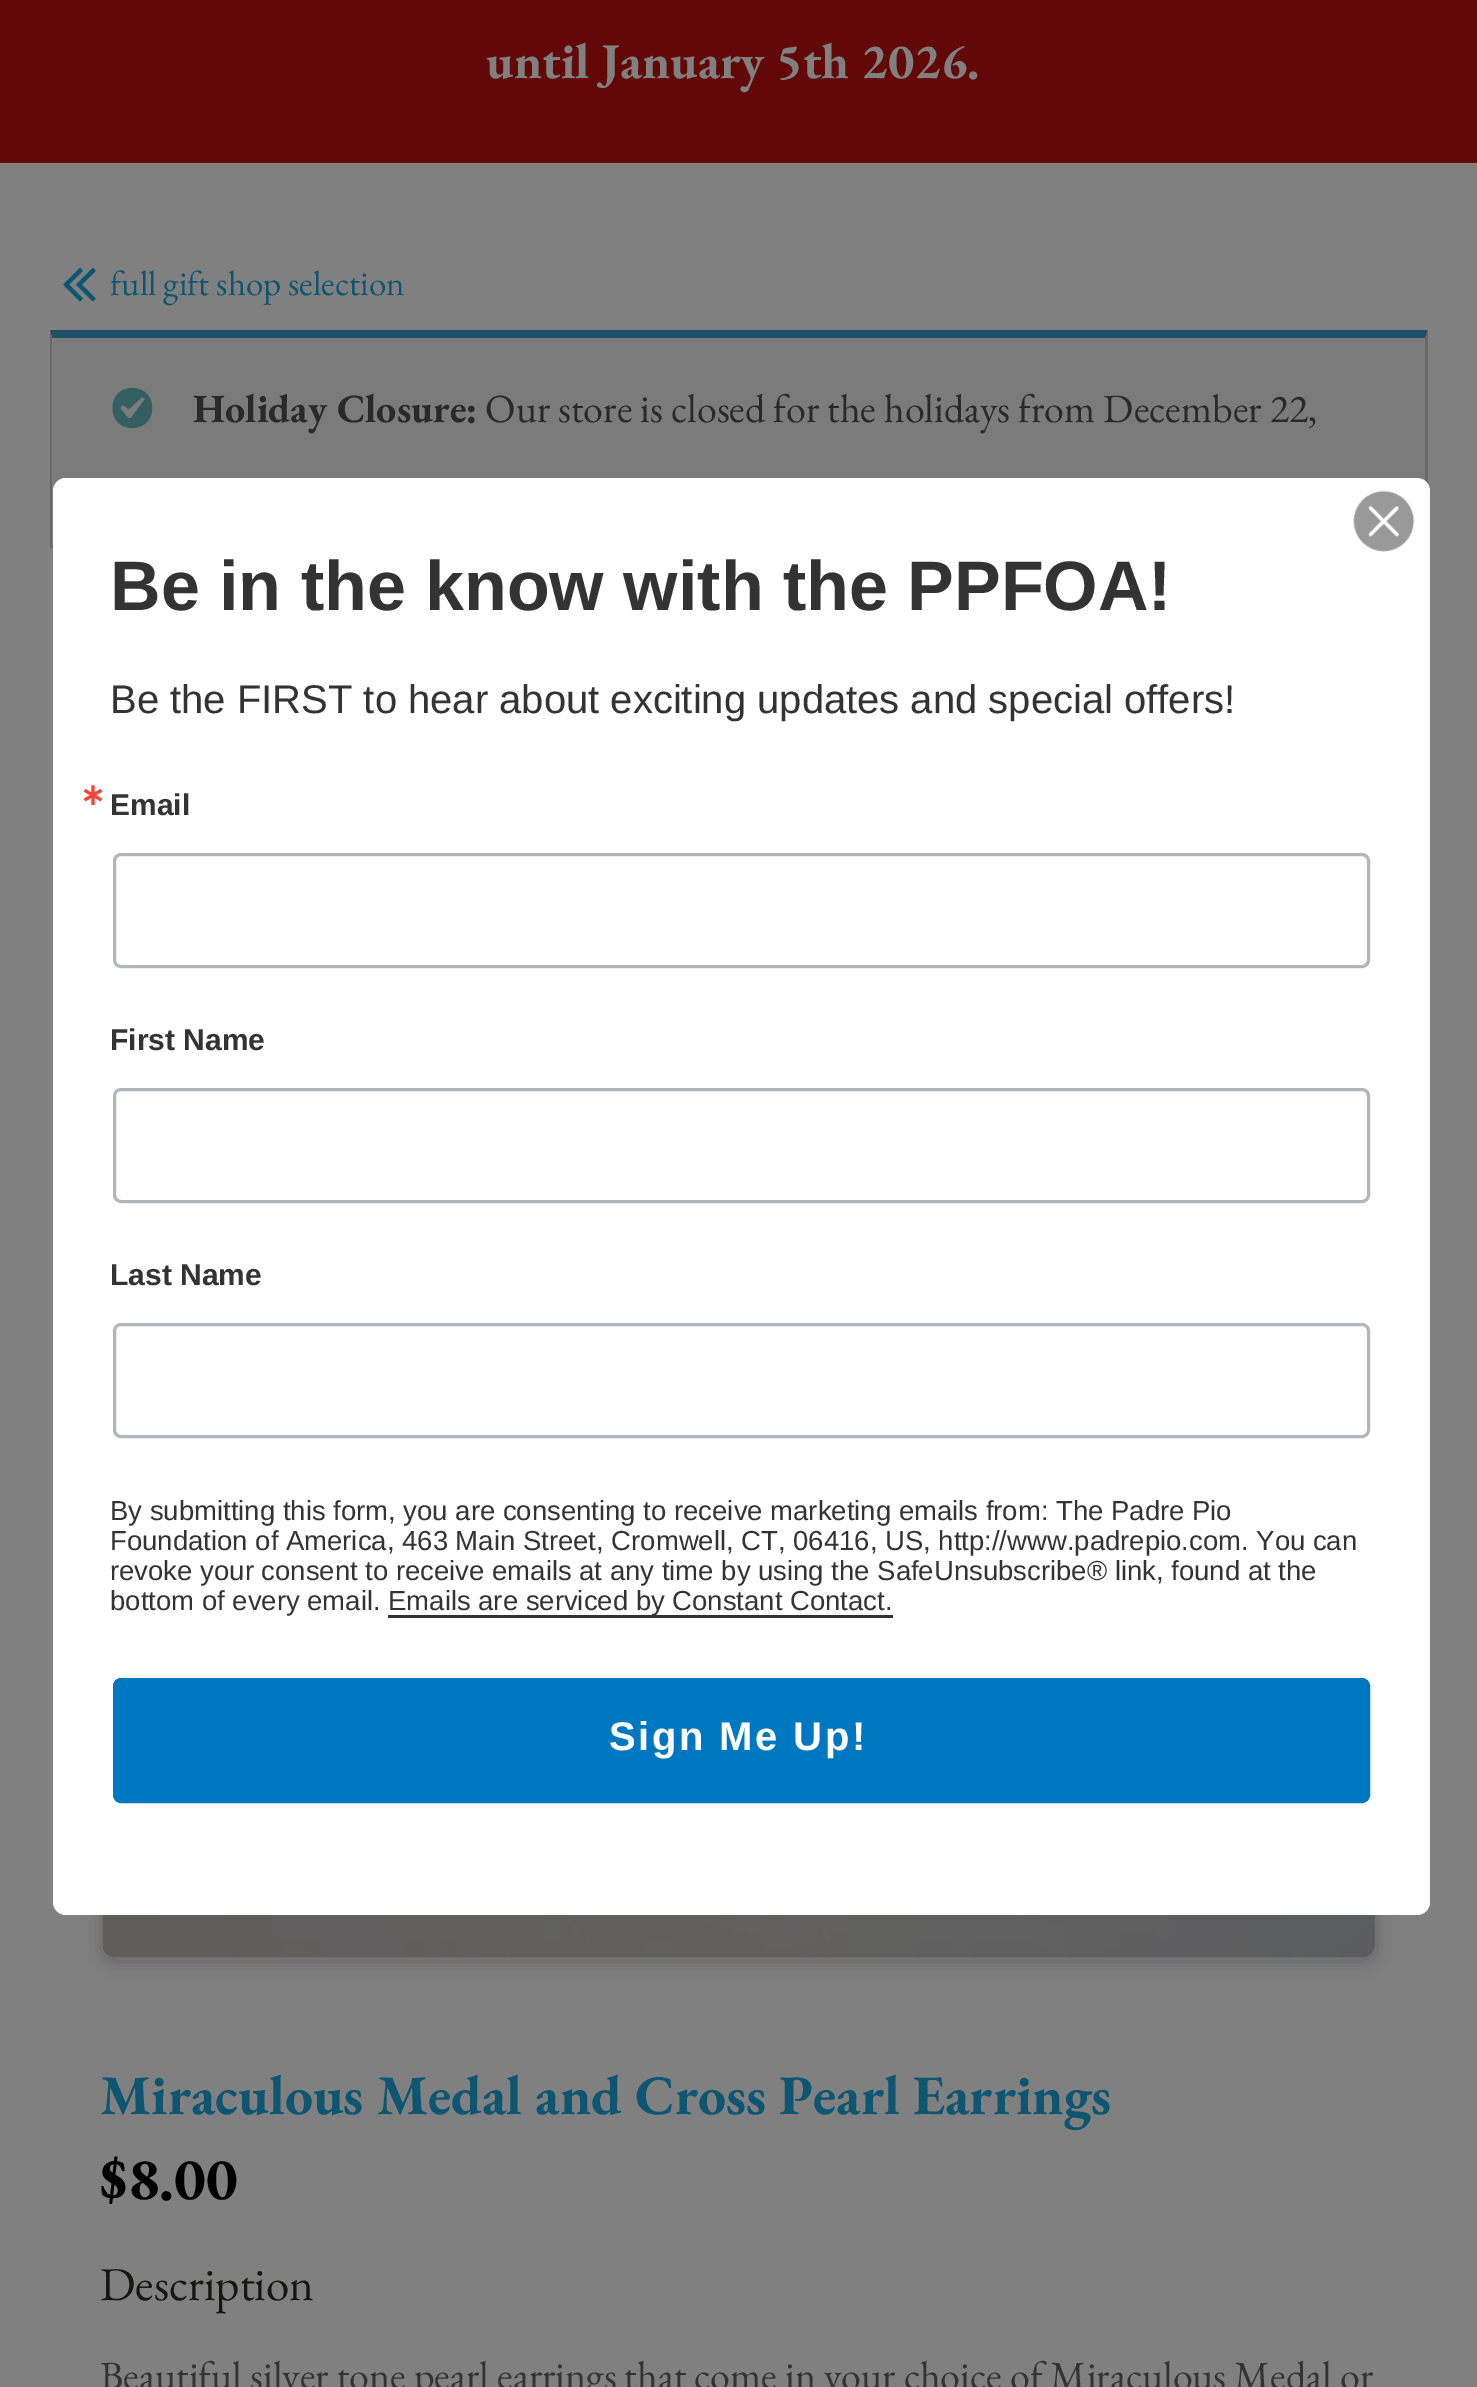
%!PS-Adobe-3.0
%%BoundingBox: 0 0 1477 2387
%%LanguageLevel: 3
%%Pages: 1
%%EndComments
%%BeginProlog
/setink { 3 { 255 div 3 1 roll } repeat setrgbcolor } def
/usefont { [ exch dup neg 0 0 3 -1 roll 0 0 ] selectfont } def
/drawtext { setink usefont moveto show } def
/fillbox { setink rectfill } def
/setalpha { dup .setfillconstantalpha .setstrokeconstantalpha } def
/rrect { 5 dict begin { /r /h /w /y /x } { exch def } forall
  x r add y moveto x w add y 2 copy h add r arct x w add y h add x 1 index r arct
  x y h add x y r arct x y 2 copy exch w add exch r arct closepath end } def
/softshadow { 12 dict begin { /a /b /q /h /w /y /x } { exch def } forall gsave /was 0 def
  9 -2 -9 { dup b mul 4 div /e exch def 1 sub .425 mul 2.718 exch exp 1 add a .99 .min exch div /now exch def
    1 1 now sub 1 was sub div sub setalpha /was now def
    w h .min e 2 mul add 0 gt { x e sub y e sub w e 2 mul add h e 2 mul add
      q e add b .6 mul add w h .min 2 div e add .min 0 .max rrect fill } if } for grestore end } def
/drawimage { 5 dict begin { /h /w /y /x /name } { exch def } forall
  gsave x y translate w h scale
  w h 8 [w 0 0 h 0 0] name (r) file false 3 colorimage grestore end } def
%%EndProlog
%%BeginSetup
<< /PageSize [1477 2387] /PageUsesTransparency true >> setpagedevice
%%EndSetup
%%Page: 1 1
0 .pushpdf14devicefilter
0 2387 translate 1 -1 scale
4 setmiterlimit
0 0 1477 2387 128 128 128 fillbox
0 0 1477 163 99 8 8 fillbox
(until January 5th 2026.) 486 78 /EBGaramond-Bold 50 128 128 128 drawtext
(assets/img1.rgb) 63 268 33 34 drawimage
(full gift shop selection) 110 295 /EBGaramond-Regular 35 13 85 112 drawtext
53 338 1372 153 124 123 124 fillbox
31 78 105 setink
50 330 moveto 1428 330 lineto 1425 338 lineto 52 338 lineto closepath fill
106 103 105 setink
1428 330 moveto 1428 548 lineto 1425 545 lineto 1425 338 lineto closepath fill
50 545 3 3 106 103 105 fillbox
50 548 moveto 50 330 lineto 52 338 lineto 52 545 lineto closepath fill
51 95 97 setink
132 388 moveto 106 388 106 428 132 428 curveto 159 428 159 388 132 388 curveto closepath 131 418 moveto 128 418 lineto 120 408 lineto 123 405 lineto 129 409 lineto 142 397 lineto 145 399 lineto closepath fill
(Holiday Closure:) 193 422 /EBGaramond-Bold 40 41 41 41 drawtext
(Our store is closed for the holidays from December 22,) 485 422 /EBGaramond-Regular 40 41 41 41 drawtext
gsave
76 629 moveto 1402 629 lineto 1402 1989 lineto 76 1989 lineto closepath 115 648 moveto 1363 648 lineto 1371.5 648 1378 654.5 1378 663 curveto 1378 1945 lineto 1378 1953.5 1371.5 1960 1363 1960 curveto 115 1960 lineto 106.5 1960 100 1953.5 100 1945 curveto 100 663 lineto 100 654.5 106.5 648 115 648 curveto closepath eoclip newpath
0 0 0 setink
100 653 1278 1312 15 7.5 0.15 softshadow
grestore
0.09 setalpha
0 0 0 setink
3 setlinewidth
101.5 649.5 1275 1309 13.5 rrect stroke
1 setalpha
(assets/img2.rgb) 102 1915 1273 43 drawimage
(Miraculous Medal and Cross Pearl Earrings) 100 2114 /EBGaramond-Bold 55.75 13 85 112 drawtext
($8.00) 100 2199 /EBGaramond-Bold 60 0 0 0 drawtext
(Description) 100 2300 /EBGaramond-Regular 47 22 22 20 drawtext
(Beautiful silver tone pearl earrings that come in your choice of Miraculous Medal or) 100 2389 /EBGaramond-Regular 40 51 51 51 drawtext
255 255 255 setink
53 478 1377 1437 13 rrect fill
(assets/img3.rgb) 1353 490 62 62 drawimage
(Be in the know with the PPFOA!) 110 610 /LiberationSans-Bold 70 51 51 51 drawtext
(Be the FIRST to hear about exciting updates and special offers!) 110 713 /LiberationSans-Regular 40 51 51 51 drawtext
(∗) 80 805 /DejaVuSans-Bold 30 245 70 59 drawtext
(Email) 110 815 /LiberationSans-Bold 30 51 51 51 drawtext
176 182 187 setink
114.5 854.5 1254 112 6.5 rrect stroke
(First Name) 110 1050 /LiberationSans-Bold 30 51 51 51 drawtext
176 182 187 setink
114.5 1089.5 1254 112 6.5 rrect stroke
(Last Name) 110 1285 /LiberationSans-Bold 30 51 51 51 drawtext
176 182 187 setink
114.5 1324.5 1254 112 6.5 rrect stroke
(By submitting this form, you are consenting to receive marketing emails from: The Padre Pio) 110 1520 /LiberationSans-Regular 27.5 51 51 51 drawtext
(Foundation of America, 463 Main Street, Cromwell, CT, 06416, US, http://www.padrepio.com. You can) 110 1550 /LiberationSans-Regular 27.5 51 51 51 drawtext
(revoke your consent to receive emails at any time by using the SafeUnsubscribe® link, found at the) 110 1580 /LiberationSans-Regular 27.5 51 51 51 drawtext
(bottom of every email.) 110 1610 /LiberationSans-Regular 27.5 51 51 51 drawtext
388 1615 505 3 50 50 50 fillbox
(Emails are serviced by Constant Contact.) 388 1610 /LiberationSans-Regular 27.5 51 51 51 drawtext
0 120 193 setink
114.5 1679.5 1254 122 6.5 rrect gsave fill grestore
stroke
/LiberationSans-Bold 40 usefont
255 255 255 setink
609 1750 moveto 2.5 0 (Sign Me Up!) ashow
.poppdf14devicefilter showpage
%%EOF
